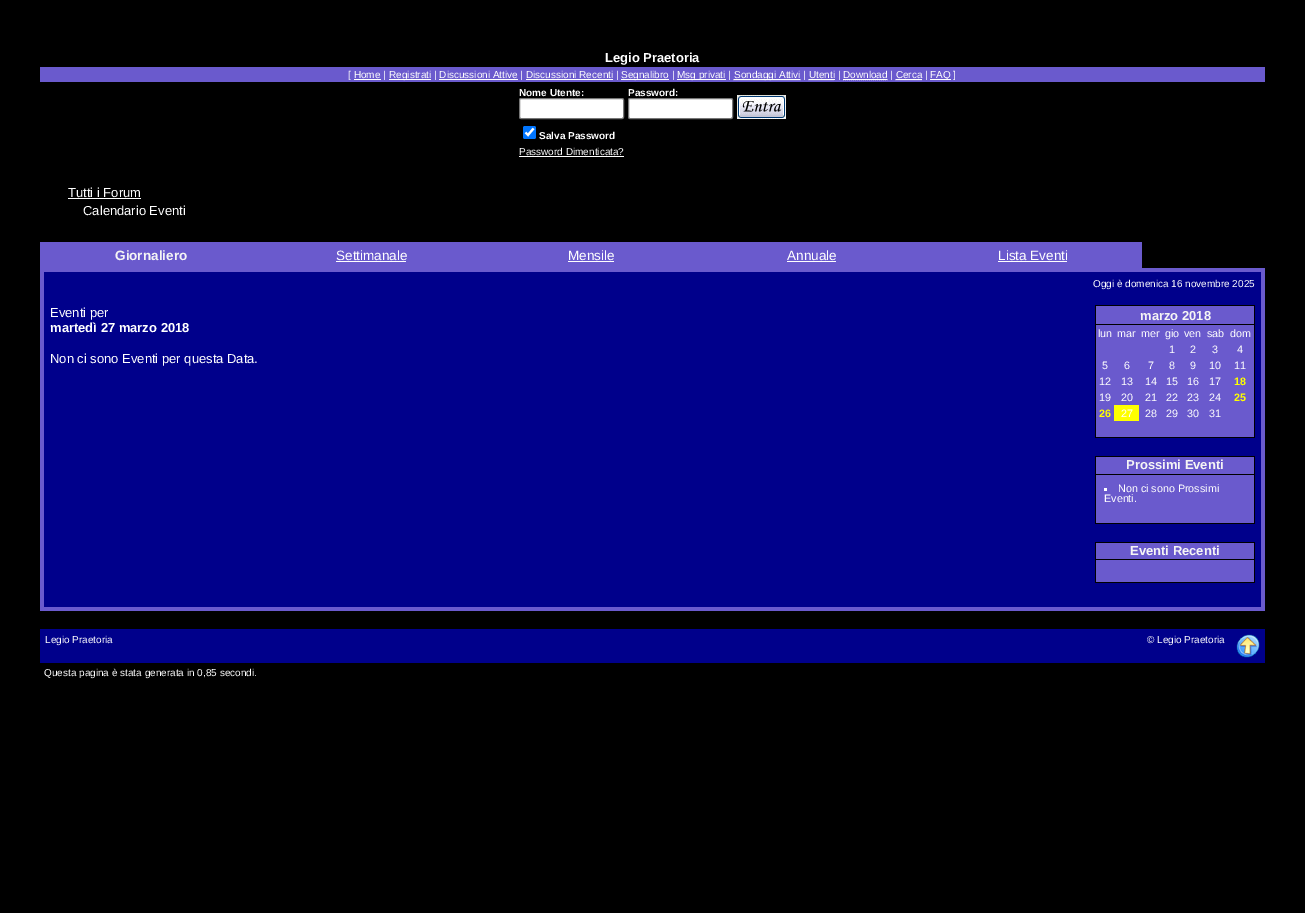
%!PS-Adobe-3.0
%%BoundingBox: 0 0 1305 913
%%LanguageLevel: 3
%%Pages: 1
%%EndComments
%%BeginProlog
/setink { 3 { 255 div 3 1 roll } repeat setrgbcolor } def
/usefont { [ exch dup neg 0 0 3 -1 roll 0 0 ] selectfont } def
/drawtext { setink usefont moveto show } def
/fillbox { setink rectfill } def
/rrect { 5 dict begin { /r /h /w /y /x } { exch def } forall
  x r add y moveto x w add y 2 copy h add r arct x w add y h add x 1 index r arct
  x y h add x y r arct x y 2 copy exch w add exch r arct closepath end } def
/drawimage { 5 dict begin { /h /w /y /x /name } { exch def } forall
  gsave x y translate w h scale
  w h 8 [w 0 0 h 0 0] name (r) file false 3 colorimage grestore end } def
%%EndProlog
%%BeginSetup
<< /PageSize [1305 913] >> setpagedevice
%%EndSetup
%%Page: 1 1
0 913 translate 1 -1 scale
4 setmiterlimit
0 0 1305 913 0 0 0 fillbox
(Legio Praetoria) 605 62 /LiberationSans-Bold 13 255 255 255 drawtext
40 67 1225 15 106 90 205 fillbox
([ Home |) 348 78 /LiberationSans-Regular 10 255 255 255 drawtext
354 79 27 1 255 255 255 fillbox
389 79 42 1 255 255 255 fillbox
(Registrati | Discussioni Attive | Discussioni Recenti |) 389 78 /LiberationSans-Regular 10 255 255 255 drawtext
439 79 79 1 255 255 255 fillbox
526 79 87 1 255 255 255 fillbox
621 79 48 1 255 255 255 fillbox
(Segnalibro |) 621 78 /LiberationSans-Regular 10 255 255 255 drawtext
677 79 49 1 255 255 255 fillbox
(Msg privati |) 677 78 /LiberationSans-Regular 10 255 255 255 drawtext
[1 1] 0 setdash
733.5 79.5 moveto 800.5 79.5 lineto stroke
734 79 66 1 255 255 255 fillbox
(Sondaggi Attivi | Utenti | Download | Cerca |) 734 78 /LiberationSans-Regular 10 255 255 255 drawtext
808.5 79.5 moveto 834.5 79.5 lineto stroke
809 79 26 1 255 255 255 fillbox
843 79.5 moveto 887.5 79.5 lineto stroke
843 79 44 1 255 255 255 fillbox
895.5 79.5 moveto 922 79.5 lineto stroke
896 79 26 1 255 255 255 fillbox
930 79 21 1 255 255 255 fillbox
(FAQ ]) 930 78 /LiberationSans-Regular 10 255 255 255 drawtext
(Nome Utente:) 519 96 /LiberationSans-Bold 10 255 255 255 drawtext
519.5 98.5 104 20 1.5 rrect gsave fill grestore
118 118 118 setink
[] 0 setdash
stroke
(Password:) 628 96 /LiberationSans-Bold 10 255 255 255 drawtext
628.5 98.5 104 20 1.5 rrect gsave fill grestore
118 118 118 setink
stroke
(assets/img1.rgb) 737 95 49 24 drawimage
0 117 255 setink
523 126 13 13 2 rrect fill
255 255 255 setink
2.1 setlinewidth
525.5 132.5 moveto 528 135 lineto 533.5 128.5 lineto stroke
(Salva Password) 539 139 /LiberationSans-Bold 10 255 255 255 drawtext
(Password Dimenticata?) 519 155 /LiberationSans-Regular 10 255 255 255 drawtext
519 156 105 1 255 255 255 fillbox
(Tutti i Forum) 68 197 /LiberationSans-Regular 13 255 255 255 drawtext
68 198 73 1 255 255 255 fillbox
(Calendario Eventi) 83 215 /LiberationSans-Regular 13 255 255 255 drawtext
40 242 1102 26 106 90 205 fillbox
(Giornaliero) 115 260 /LiberationSans-Bold 13.5 245 245 245 drawtext
(Settimanale) 336 260 /LiberationSans-Regular 13.5 255 255 255 drawtext
336 261 70 1 255 255 255 fillbox
(Mensile) 568 260 /LiberationSans-Regular 13.5 255 255 255 drawtext
568 261 46 1 255 255 255 fillbox
(Annuale) 787 260 /LiberationSans-Regular 13.5 255 255 255 drawtext
787 261 49 1 255 255 255 fillbox
(Lista Eventi) 998 260 /LiberationSans-Regular 13.5 255 255 255 drawtext
998 261 69 1 255 255 255 fillbox
40 268 1225 343 106 90 205 fillbox
44 272 1217 335 0 0 139 fillbox
(Oggi è domenica 16 novembre 2025) 1093 287 /LiberationSans-Regular 10 255 255 255 drawtext
(Eventi per) 50 317 /LiberationSans-Regular 13 255 255 255 drawtext
(martedì 27 marzo 2018) 50 332 /LiberationSans-Bold 13 255 255 255 drawtext
(Non ci sono Eventi per questa Data.) 50 363 /LiberationSans-Regular 13 255 255 255 drawtext
1095 305 160 133 0 0 0 fillbox
1096 306 158 18 106 90 205 fillbox
(marzo 2018) 1140 320 /LiberationSans-Bold 13 245 245 245 drawtext
1096 325 158 112 106 90 205 fillbox
(lun) 1098 337 /LiberationSans-Regular 10.75 255 255 255 drawtext
(mar) 1117 337 /LiberationSans-Regular 10.75 255 255 255 drawtext
(mer) 1141 337 /LiberationSans-Regular 10.75 255 255 255 drawtext
(gio) 1165 337 /LiberationSans-Regular 10.75 255 255 255 drawtext
(ven) 1184 337 /LiberationSans-Regular 10.75 255 255 255 drawtext
(sab) 1207 337 /LiberationSans-Regular 10.75 255 255 255 drawtext
(dom) 1230 337 /LiberationSans-Regular 10.75 255 255 255 drawtext
(1) 1169 353 /LiberationSans-Regular 10.75 255 255 255 drawtext
(2) 1190 353 /LiberationSans-Regular 10.75 255 255 255 drawtext
(3) 1212 353 /LiberationSans-Regular 10.75 255 255 255 drawtext
(4) 1237 353 /LiberationSans-Regular 10.75 255 255 255 drawtext
(5) 1102 369 /LiberationSans-Regular 10.75 255 255 255 drawtext
(6) 1124 369 /LiberationSans-Regular 10.75 255 255 255 drawtext
(7) 1148 369 /LiberationSans-Regular 10.75 255 255 255 drawtext
(8) 1169 369 /LiberationSans-Regular 10.75 255 255 255 drawtext
(9) 1190 369 /LiberationSans-Regular 10.75 255 255 255 drawtext
(10) 1209 369 /LiberationSans-Regular 10.75 255 255 255 drawtext
(11) 1234 369 /LiberationSans-Regular 10.75 255 255 255 drawtext
(12) 1099 385 /LiberationSans-Regular 10.75 255 255 255 drawtext
(13) 1121 385 /LiberationSans-Regular 10.75 255 255 255 drawtext
(14) 1145 385 /LiberationSans-Regular 10.75 255 255 255 drawtext
(15) 1166 385 /LiberationSans-Regular 10.75 255 255 255 drawtext
(16) 1187 385 /LiberationSans-Regular 10.75 255 255 255 drawtext
(17) 1209 385 /LiberationSans-Regular 10.75 255 255 255 drawtext
(18) 1234 385 /LiberationSans-Bold 10.75 255 255 0 drawtext
(19) 1099 401 /LiberationSans-Regular 10.75 255 255 255 drawtext
(20) 1121 401 /LiberationSans-Regular 10.75 255 255 255 drawtext
(21) 1145 401 /LiberationSans-Regular 10.75 255 255 255 drawtext
(22) 1166 401 /LiberationSans-Regular 10.75 255 255 255 drawtext
(23) 1187 401 /LiberationSans-Regular 10.75 255 255 255 drawtext
(24) 1209 401 /LiberationSans-Regular 10.75 255 255 255 drawtext
(25) 1234 401 /LiberationSans-Bold 10.75 255 255 0 drawtext
(26) 1099 417 /LiberationSans-Bold 10.75 255 255 0 drawtext
1114 405 25 16 255 255 0 fillbox
(27) 1121 417 /LiberationSans-Regular 10.75 255 255 255 drawtext
(28) 1145 417 /LiberationSans-Regular 10.75 255 255 255 drawtext
(29) 1166 417 /LiberationSans-Regular 10.75 255 255 255 drawtext
(30) 1187 417 /LiberationSans-Regular 10.75 255 255 255 drawtext
(31) 1209 417 /LiberationSans-Regular 10.75 255 255 255 drawtext
1095 456 160 68 0 0 0 fillbox
1096 457 158 17 106 90 205 fillbox
(Prossimi Eventi) 1126 469 /LiberationSans-Bold 13 245 245 245 drawtext
1096 475 158 48 106 90 205 fillbox
1104 488 3 3 255 255 255 fillbox
(Non ci sono Prossimi) 1118 492 /LiberationSans-Regular 10.75 255 255 255 drawtext
(Eventi.) 1104 502 /LiberationSans-Regular 10.75 255 255 255 drawtext
1095 542 160 41 0 0 0 fillbox
1096 543 158 16 106 90 205 fillbox
(Eventi Recenti) 1130 555 /LiberationSans-Bold 13 245 245 245 drawtext
1096 560 158 22 106 90 205 fillbox
40 629 1225 34 0 0 139 fillbox
(Legio Praetoria) 45 643 /LiberationSans-Regular 10 255 255 255 drawtext
(© Legio Praetoria) 1147 643 /LiberationSans-Regular 10 255 255 255 drawtext
(assets/img2.rgb) 1236 634 24 24 drawimage
(Questa pagina è stata generata in 0,85 secondi.) 44 676 /LiberationSans-Regular 10 255 255 255 drawtext
showpage
%%EOF
